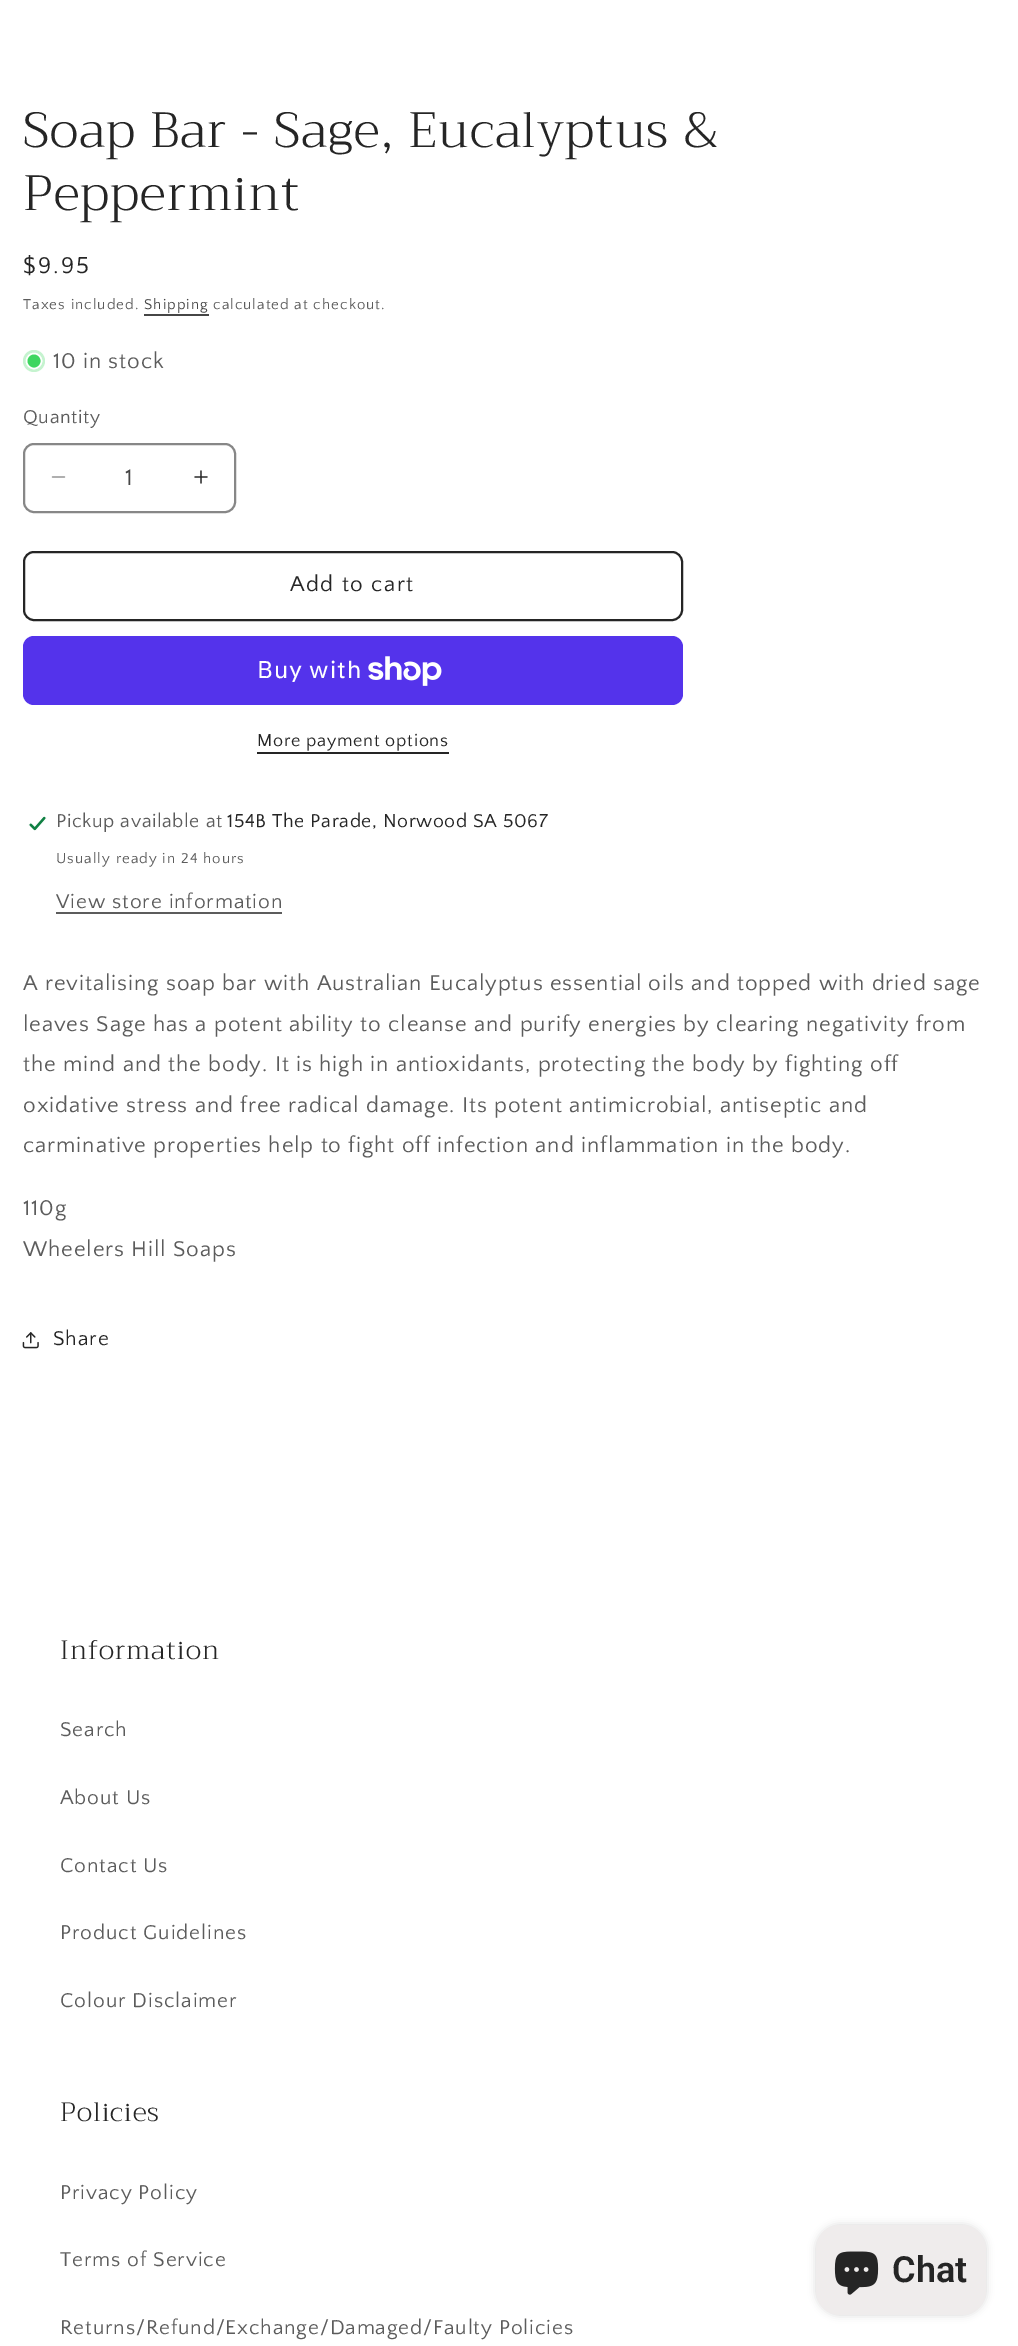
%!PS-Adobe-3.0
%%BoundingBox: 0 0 1018 2346
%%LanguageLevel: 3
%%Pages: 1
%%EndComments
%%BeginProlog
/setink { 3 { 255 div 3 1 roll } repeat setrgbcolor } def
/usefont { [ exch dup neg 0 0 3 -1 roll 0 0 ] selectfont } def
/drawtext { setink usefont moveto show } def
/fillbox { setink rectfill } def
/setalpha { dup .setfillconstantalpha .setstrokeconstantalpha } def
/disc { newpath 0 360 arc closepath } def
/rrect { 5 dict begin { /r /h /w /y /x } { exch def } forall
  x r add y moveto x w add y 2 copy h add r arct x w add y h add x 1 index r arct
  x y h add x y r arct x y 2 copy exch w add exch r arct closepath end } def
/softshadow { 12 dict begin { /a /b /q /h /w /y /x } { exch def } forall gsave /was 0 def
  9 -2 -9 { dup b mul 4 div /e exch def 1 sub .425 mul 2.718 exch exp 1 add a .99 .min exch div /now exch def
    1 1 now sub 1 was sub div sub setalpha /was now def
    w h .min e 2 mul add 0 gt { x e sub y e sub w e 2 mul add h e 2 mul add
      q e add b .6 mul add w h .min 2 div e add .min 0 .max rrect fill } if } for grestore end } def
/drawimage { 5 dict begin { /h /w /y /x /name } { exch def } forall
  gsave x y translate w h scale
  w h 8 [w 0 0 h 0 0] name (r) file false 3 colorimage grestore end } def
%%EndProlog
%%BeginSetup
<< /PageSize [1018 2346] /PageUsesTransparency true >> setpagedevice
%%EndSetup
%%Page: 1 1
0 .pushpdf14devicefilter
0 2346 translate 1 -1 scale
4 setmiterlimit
0 0 1018 2346 255 255 255 fillbox
/Trirong-Light 49.5 usefont
37 37 37 setink
23 147 moveto 1 0 (Soap Bar - Sage, Eucalyptus &) ashow
23 210 moveto 1 0 (Peppermint) ashow
/QuattrocentoSans-Regular 24 usefont
23 273 moveto 2 0 ($9.95) ashow
/QuattrocentoSans-Regular 15 usefont
92 92 92 setink
23 309 moveto 1.05 0 (Taxes included.) ashow
70 70 70 setink
144 309 moveto 1.05 0 (Shipping) ashow
144 314 65 2 70 70 70 fillbox
92 92 92 setink
213 309 moveto 1.05 0 (calculated at checkout.) ashow
197 243 207 setink
34 361 11 disc fill
62 214 96 setink
34 361 7.5 disc gsave fill grestore
255 255 255 setink
1.5 setlinewidth
stroke
/QuattrocentoSans-Regular 22.5 usefont
92 92 92 setink
53 368 moveto 0.9 0 (10 in stock) ashow
/QuattrocentoSans-Regular 19.5 usefont
23 423 moveto 0.6 0 (Quantity) ashow
(assets/img1.rgb) 51 476 15 2 drawimage
(assets/img2.rgb) 194 470 14 14 drawimage
135 135 135 setink
2 setlinewidth
24 444 211 68 10 rrect stroke
(1) 125 485 /QuattrocentoSans-Regular 24 70 70 70 drawtext
37 37 37 setink
24 552 658 68 10 rrect stroke
/QuattrocentoSans-Regular 22.5 usefont
290 591 moveto 1.5 0 (Add to cart) ashow
84 51 235 setink
23 636 660 69 11 rrect fill
/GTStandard-Regular 24 usefont
255 255 255 setink
257 678 moveto 0.9 0 (Buy with) ashow
(assets/img3.rgb) 368 656 74 30 drawimage
/QuattrocentoSans-Regular 18 usefont
37 37 37 setink
257 746 moveto 0.75 0 (More payment options) ashow
257 752 192 2 37 37 37 fillbox
(assets/img4.rgb) 28 816 19 15 drawimage
/QuattrocentoSans-Regular 19.5 usefont
92 92 92 setink
56 827 moveto 0.6 0 (Pickup available at) ashow
37 37 37 setink
227 827 moveto 0.6 0 (154B The Parade, Norwood SA 5067) ashow
/QuattrocentoSans-Regular 15 usefont
92 92 92 setink
56 863 moveto 1.05 0 (Usually ready in 24 hours) ashow
/QuattrocentoSans-Regular 21 usefont
56 908 moveto 0.9 0 (View store information) ashow
56 912 226 2 92 92 92 fillbox
/QuattrocentoSans-Regular 22.5 usefont
23 990 moveto 0.9 0 (A revitalising soap bar with Australian Eucalyptus essential oils and topped with dried sage) ashow
23 1031 moveto 0.9 0 (leaves Sage has a potent ability to cleanse and purify energies by clearing negativity from) ashow
23 1071 moveto 0.9 0 (the mind and the body. It is high in antioxidants, protecting the body by fighting off) ashow
23 1112 moveto 0.9 0 (oxidative stress and free radical damage. Its potent antimicrobial, antiseptic and) ashow
23 1152 moveto 0.9 0 (carminative properties help to fight off infection and inflammation in the body.) ashow
23 1215 moveto 0.9 0 (110g) ashow
23 1256 moveto 0.9 0 (Wheelers Hill Soaps) ashow
(assets/img5.rgb) 22 1332 17 17 drawimage
/QuattrocentoSans-Regular 21 usefont
37 37 37 setink
53 1345 moveto 0.9 0 (Share) ashow
/Trirong-Light 26.5 usefont
60 1659 moveto 1 0 (Information) ashow
/QuattrocentoSans-Regular 21 usefont
92 92 92 setink
60 1736 moveto 0.9 0 (Search) ashow
60 1804 moveto 0.9 0 (About Us) ashow
60 1872 moveto 0.9 0 (Contact Us) ashow
60 1939 moveto 0.9 0 (Product Guidelines) ashow
60 2007 moveto 0.9 0 (Colour Disclaimer) ashow
/Trirong-Light 26.5 usefont
37 37 37 setink
60 2121 moveto 1 0 (Policies) ashow
/QuattrocentoSans-Regular 21 usefont
92 92 92 setink
60 2199 moveto 0.9 0 (Privacy Policy) ashow
60 2266 moveto 0.9 0 (Terms of Service) ashow
60 2334 moveto 0.9 0 (Returns/Refund/Exchange/Damaged/Faulty Policies) ashow
0 0 0 setink
816 2225 170 90 24 4 0.15 softshadow
239 236 236 setink
816 2225 170 90 24 rrect fill
(assets/img6.rgb) 834 2251 45 44 drawimage
(Chat) 892 2282 /Roboto-SemiBold 36 37 37 37 drawtext
.poppdf14devicefilter showpage
%%EOF
